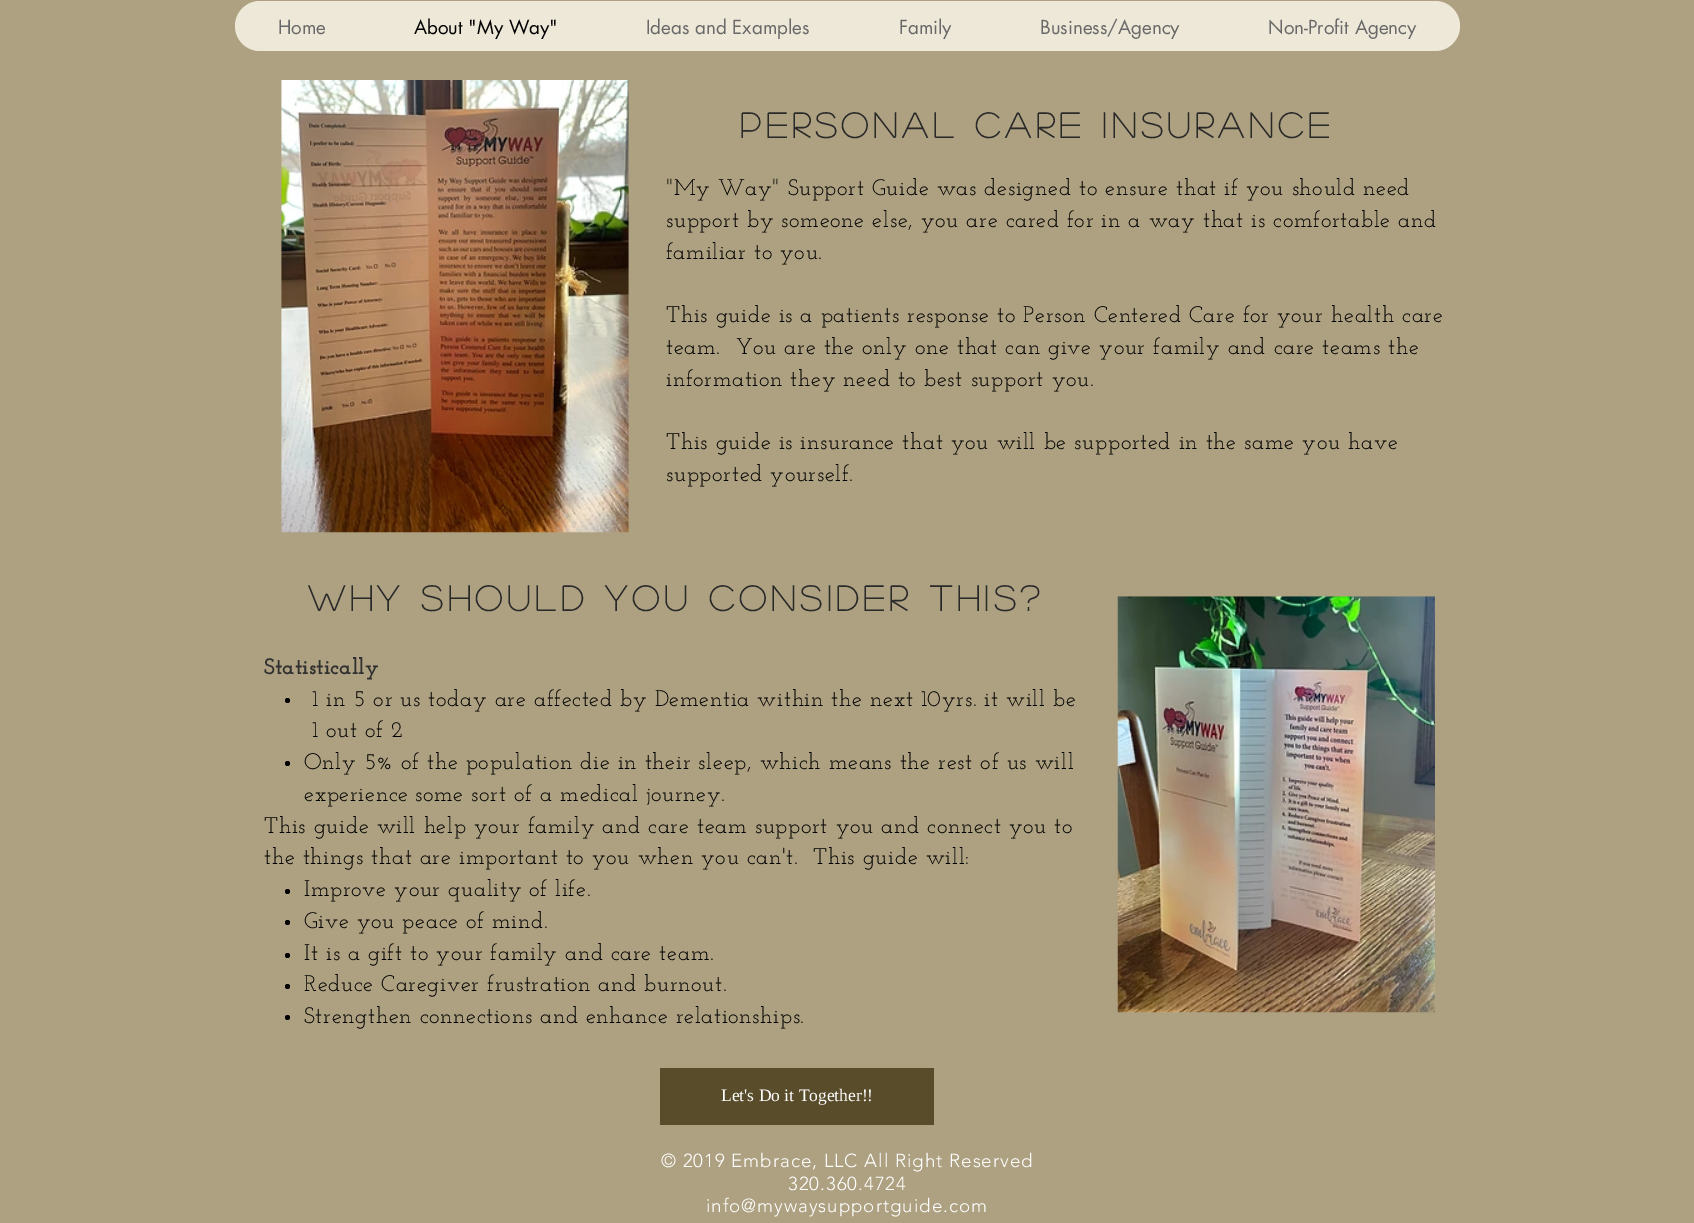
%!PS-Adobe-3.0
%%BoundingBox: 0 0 1694 1223
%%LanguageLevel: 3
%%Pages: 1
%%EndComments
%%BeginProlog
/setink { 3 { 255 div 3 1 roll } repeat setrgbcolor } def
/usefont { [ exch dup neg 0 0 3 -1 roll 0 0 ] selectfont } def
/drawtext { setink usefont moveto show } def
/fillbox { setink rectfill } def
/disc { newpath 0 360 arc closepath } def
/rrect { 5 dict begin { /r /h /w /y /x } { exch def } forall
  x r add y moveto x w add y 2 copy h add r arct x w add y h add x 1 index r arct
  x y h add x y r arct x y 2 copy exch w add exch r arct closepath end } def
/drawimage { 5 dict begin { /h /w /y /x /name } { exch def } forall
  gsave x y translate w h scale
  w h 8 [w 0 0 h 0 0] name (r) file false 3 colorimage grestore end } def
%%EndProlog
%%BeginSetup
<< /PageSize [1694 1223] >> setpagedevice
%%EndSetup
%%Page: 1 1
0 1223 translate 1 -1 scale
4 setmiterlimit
0 0 1694 1223 174 161 129 fillbox
238 232 216 setink
235 1 1225 50 25 rrect fill
(Home) 278 34 /futura-Regular 18.75 105 105 105 drawtext
(About "My Way") 414 34 /futura-Regular 18.75 0 0 0 drawtext
(Ideas and Examples) 646 34 /futura-Regular 18.75 105 105 105 drawtext
(Family) 899 34 /futura-Regular 18.75 105 105 105 drawtext
(Business/Agency) 1040 34 /futura-Regular 18.75 105 105 105 drawtext
(Non-Profit Agency) 1268 34 /futura-Regular 18.75 105 105 105 drawtext
(assets/img1.rgb) 281 80 348 453 drawimage
/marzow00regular-Bold 35 usefont
41 41 41 setink
740 138 moveto 5.25 0 (Personal Care Insurance) ashow
/JosefinSlab-Regular 22.5 usefont
0 0 0 setink
666 195 moveto 0.68 0 ("My Way" Support Guide was designed to ensure that if you should need) ashow
666 227 moveto 0.68 0 (support by someone else, you are cared for in a way that is comfortable and) ashow
666 259 moveto 0.68 0 (familiar to you.) ashow
666 322 moveto 0.68 0 (This guide is a patients response to Person Centered Care for your health care) ashow
666 354 moveto 0.68 0 (team.  You are the only one that can give your family and care teams the) ashow
666 386 moveto 0.68 0 (information they need to best support you.) ashow
666 449 moveto 0.68 0 (This guide is insurance that you will be supported in the same you have) ashow
666 481 moveto 0.68 0 (supported yourself.) ashow
/marzow00regular-Bold 35 usefont
41 41 41 setink
308 611 moveto 5.25 0 (Why should you consider this?) ashow
(assets/img2.rgb) 1117 596 318 417 drawimage
(Statistically) 264 674 /JosefinSlab-Bold 22.5 48 48 48 drawtext
0 0 0 setink
287.5 700.5 2.5 disc fill
/JosefinSlab-Regular 22.5 usefont
312 706 moveto 0.68 0 (1 in 5 or us today are affected by Dementia within the next 10yrs. it will be) ashow
312 737 moveto 0.68 0 (1 out of 2) ashow
287.5 763.5 2.5 disc fill
304 769 moveto 0.68 0 (Only 5% of the population die in their sleep, which means the rest of us will) ashow
304 801 moveto 0.68 0 (experience) ashow
415 801 moveto 0.68 0 (some sort of a medical journey.) ashow
264 833 moveto 0.68 0 (This guide will help your family and care team support you and connect you to) ashow
264 864 moveto 0.68 0 (the things that are important to you when you can't.  This guide will:) ashow
287.5 891.5 2.5 disc fill
304 896 moveto 0.68 0 (Improve your quality of life.) ashow
287.5 922.5 2.5 disc fill
304 928 moveto 0.68 0 (Give you peace of mind.) ashow
287.5 955.5 2.5 disc fill
304 960 moveto 0.68 0 (It is a gift to your family and care team.) ashow
287.5 986.5 2.5 disc fill
304 991 moveto 0.68 0 (Reduce Caregiver frustration and burnout.) ashow
287.5 1017.5 2.5 disc fill
304 1023 moveto 0.68 0 (Strengthen connections and enhance relationships.) ashow
660 1068 274 57 89 76 43 fillbox
(Let's Do it Together!!) 721 1101 /LiberationSerif-Regular 17.5 255 255 255 drawtext
/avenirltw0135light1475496-Light 18.75 usefont
661 1167 moveto 0.95 0 (© 2019 Embrace, LLC All Right Reserved) ashow
788 1190 moveto 0.95 0 (320.360.4724) ashow
706 1212 moveto 0.95 0 (info@mywaysupportguide.com) ashow
showpage
%%EOF
